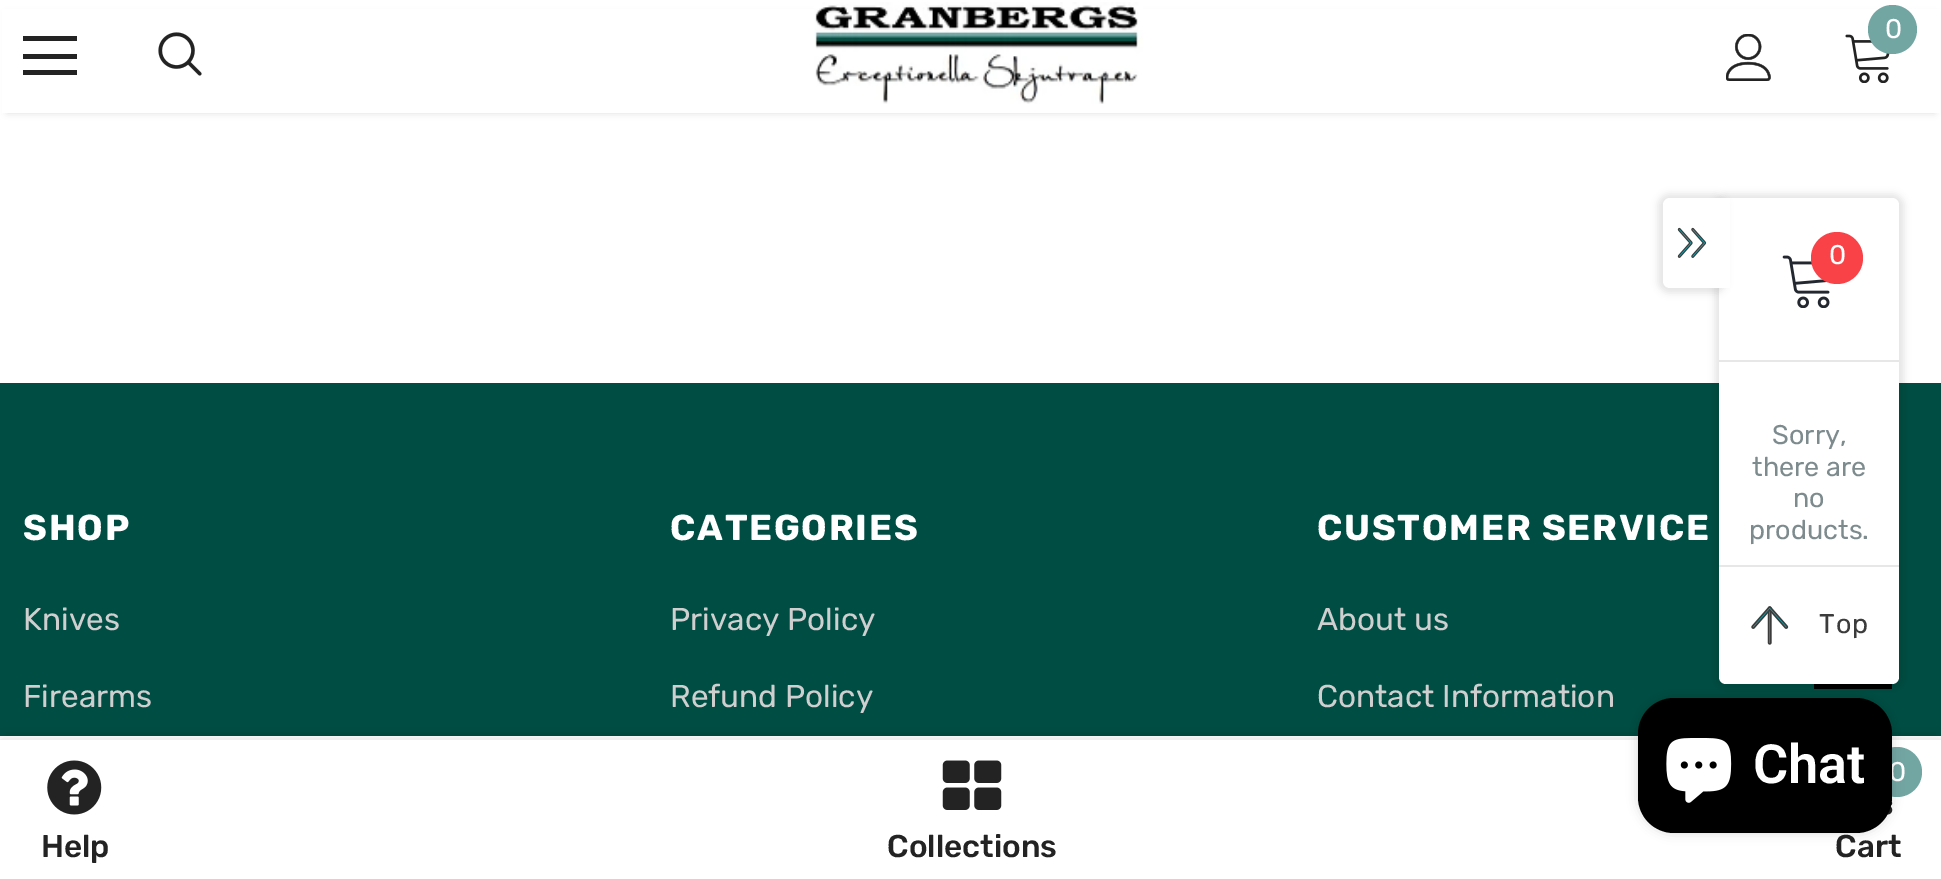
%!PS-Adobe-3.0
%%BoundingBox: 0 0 1941 879
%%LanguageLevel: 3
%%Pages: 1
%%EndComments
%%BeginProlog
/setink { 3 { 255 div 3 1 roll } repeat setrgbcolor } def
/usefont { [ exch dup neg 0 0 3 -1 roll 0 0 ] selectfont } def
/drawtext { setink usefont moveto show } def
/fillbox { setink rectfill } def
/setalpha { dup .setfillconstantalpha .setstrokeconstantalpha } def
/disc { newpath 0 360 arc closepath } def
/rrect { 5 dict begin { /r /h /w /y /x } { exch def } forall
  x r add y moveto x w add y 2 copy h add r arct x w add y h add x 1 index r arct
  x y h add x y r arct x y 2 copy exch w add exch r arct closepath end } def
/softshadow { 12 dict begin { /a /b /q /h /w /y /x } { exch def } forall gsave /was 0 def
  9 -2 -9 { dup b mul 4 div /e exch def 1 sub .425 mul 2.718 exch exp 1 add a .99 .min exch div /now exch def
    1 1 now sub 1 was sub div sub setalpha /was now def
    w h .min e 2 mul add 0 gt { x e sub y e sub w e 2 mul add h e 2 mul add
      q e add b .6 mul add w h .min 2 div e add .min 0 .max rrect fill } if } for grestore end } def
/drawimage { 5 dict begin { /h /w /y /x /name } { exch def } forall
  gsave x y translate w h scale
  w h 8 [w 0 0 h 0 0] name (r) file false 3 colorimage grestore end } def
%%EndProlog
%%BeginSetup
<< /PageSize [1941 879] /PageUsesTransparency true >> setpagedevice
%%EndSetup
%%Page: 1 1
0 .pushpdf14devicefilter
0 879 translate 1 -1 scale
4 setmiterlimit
0 0 1941 879 255 255 255 fillbox
0 0 0 setink
7 14 1928 99 0 3.5 0.12 softshadow
2 9 1938 104 255 255 255 fillbox
(assets/img1.rgb) 814 2 329 102 drawimage
(assets/img2.rgb) 1845 34 45 49 drawimage
114 166 163 setink
1892.5 29.5 24.5 disc fill
(0) 1885 38 /Rubik-Regular 27 255 255 255 drawtext
(assets/img3.rgb) 1726 34 45 47 drawimage
23 36 54 5 35 35 35 fillbox
23 54 54 5 35 35 35 fillbox
23 70 54 5 35 35 35 fillbox
(assets/img4.rgb) 158 32 44 44 drawimage
0 383 1941 353 0 77 67 fillbox
1814 684 78 5 0 0 0 fillbox
1715 194 189 495 11 3.5 0.1 softshadow
255 255 255 setink
1719 198 moveto 1892 198 lineto 1896 198 1899 201 1899 205 curveto 1899 677 lineto 1899 681 1896 684 1892 684 curveto 1726 684 lineto 1722 684 1719 681 1719 677 curveto closepath fill
0 0 0 setink
1658 194 68 99 11 3.5 0.1 softshadow
255 255 255 setink
1670 198 moveto 1721 198 lineto 1721 288 lineto 1670 288 lineto 1666 288 1663 285 1663 281 curveto 1663 205 lineto 1663 201 1666 198 1670 198 curveto closepath fill
(assets/img5.rgb) 1677 227 30 31 drawimage
1721 198 9 90 255 255 255 fillbox
1719 360 180 2 231 231 231 fillbox
(assets/img6.rgb) 1782 255 48 53 drawimage
248 66 72 setink
1837 258 26 disc fill
(0) 1829 264 /Rubik-Regular 27 255 255 255 drawtext
(Sorry,) 1772 444 /Rubik-Regular 27 125 139 142 drawtext
(there are) 1752 476 /Rubik-Regular 27 125 139 142 drawtext
(no) 1793 507 /Rubik-Regular 27 125 139 142 drawtext
(products.) 1749 539 /Rubik-Regular 27 125 139 142 drawtext
1719 565 180 2 231 231 231 fillbox
(assets/img7.rgb) 1751 606 38 39 drawimage
60 60 60 setink
1819 633 moveto 1 0 (Top) ashow
/Rubik-Bold 36 usefont
255 255 255 setink
23 540 moveto 1.75 0 (SHOP) ashow
(Knives) 23 630 /Rubik-Regular 31.5 207 207 208 drawtext
(Firearms) 23 707 /Rubik-Regular 31.5 207 207 208 drawtext
/Rubik-Bold 36 usefont
255 255 255 setink
670 540 moveto 1.75 0 (CATEGORIES) ashow
(Privacy Policy) 670 630 /Rubik-Regular 31.5 207 207 208 drawtext
(Refund Policy) 670 707 /Rubik-Regular 31.5 207 207 208 drawtext
/Rubik-Bold 36 usefont
255 255 255 setink
1317 540 moveto 1.75 0 (CUSTOMER SERVICE) ashow
(About us) 1317 630 /Rubik-Regular 31.5 207 207 208 drawtext
(Contact Information) 1317 707 /Rubik-Regular 31.5 207 207 208 drawtext
0 0 0 setink
7 736 1928 130 0 3.5 0.1 softshadow
0 736 1941 4 255 255 255 fillbox
0 0 0 setink
0 740 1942 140 0 10 0.12 softshadow
0 740 1941 139 255 255 255 fillbox
(assets/img8.rgb) 47 760 55 55 drawimage
(Help) 41 857 /Rubik-Medium 31.5 35 35 35 drawtext
(assets/img9.rgb) 942 760 60 50 drawimage
(Collections) 887 857 /Rubik-Medium 31.5 35 35 35 drawtext
114 166 163 setink
1897 772 25 disc fill
(0) 1889 781 /Rubik-Regular 27 255 255 255 drawtext
(assets/img10.rgb) 1887 801 6 14 drawimage
(Cart) 1835 857 /Rubik-Medium 31.5 35 35 35 drawtext
0 0 0 setink
1638 698 254 135 36 5.5 0.15 softshadow
1638 698 254 135 36 rrect fill
(assets/img11.rgb) 1666 738 66 65 drawimage
(Chat) 1753 783 /Roboto-SemiBold 54 255 255 255 drawtext
.poppdf14devicefilter showpage
%%EOF
